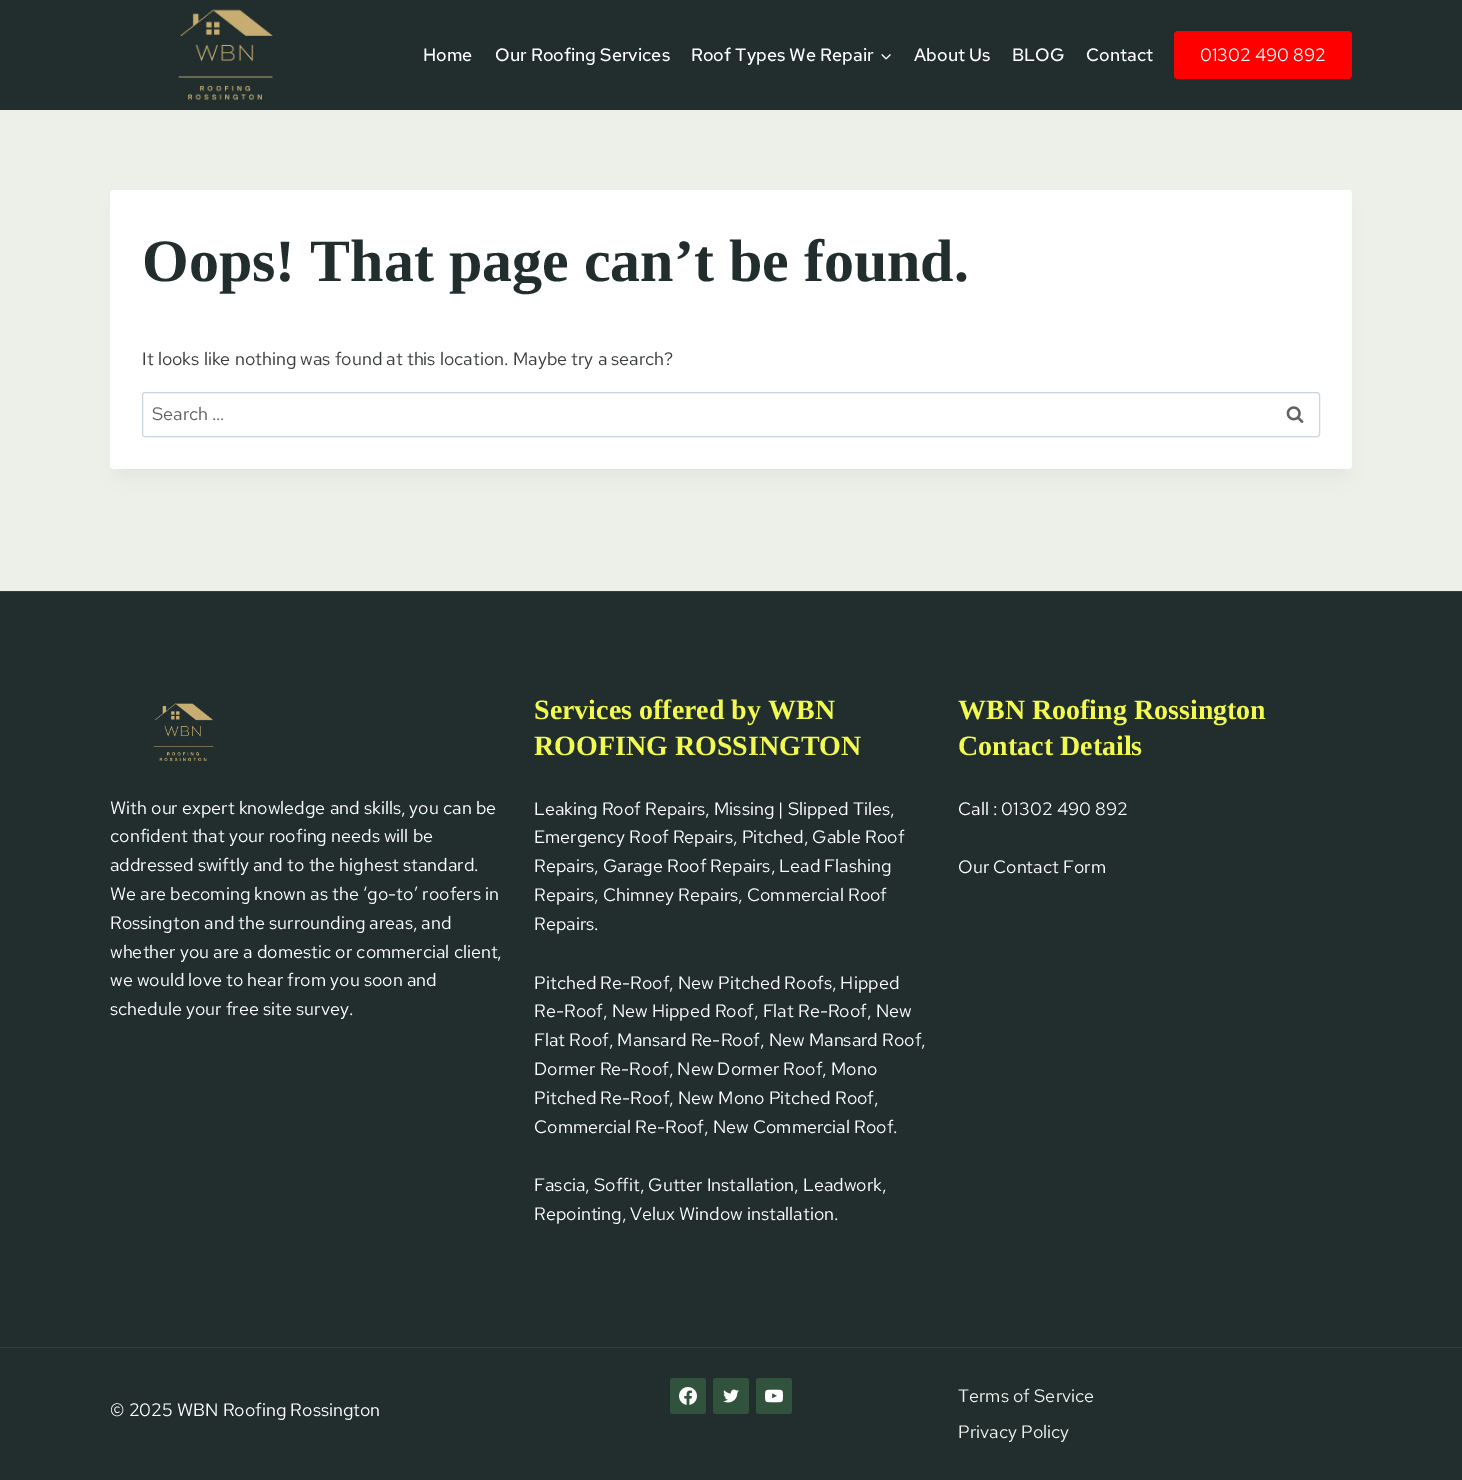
%!PS-Adobe-3.0
%%BoundingBox: 0 0 1462 1480
%%LanguageLevel: 3
%%Pages: 1
%%EndComments
%%BeginProlog
/setink { 3 { 255 div 3 1 roll } repeat setrgbcolor } def
/usefont { [ exch dup neg 0 0 3 -1 roll 0 0 ] selectfont } def
/drawtext { setink usefont moveto show } def
/fillbox { setink rectfill } def
/setalpha { dup .setfillconstantalpha .setstrokeconstantalpha } def
/rrect { 5 dict begin { /r /h /w /y /x } { exch def } forall
  x r add y moveto x w add y 2 copy h add r arct x w add y h add x 1 index r arct
  x y h add x y r arct x y 2 copy exch w add exch r arct closepath end } def
/softshadow { 12 dict begin { /a /b /q /h /w /y /x } { exch def } forall gsave /was 0 def
  9 -2 -9 { dup b mul 4 div /e exch def 1 sub .425 mul 2.718 exch exp 1 add a .99 .min exch div /now exch def
    1 1 now sub 1 was sub div sub setalpha /was now def
    w h .min e 2 mul add 0 gt { x e sub y e sub w e 2 mul add h e 2 mul add
      q e add b .6 mul add w h .min 2 div e add .min 0 .max rrect fill } if } for grestore end } def
/drawimage { 5 dict begin { /h /w /y /x /name } { exch def } forall
  gsave x y translate w h scale
  w h 8 [w 0 0 h 0 0] name (r) file false 3 colorimage grestore end } def
%%EndProlog
%%BeginSetup
<< /PageSize [1462 1480] /PageUsesTransparency true >> setpagedevice
%%EndSetup
%%Page: 1 1
0 .pushpdf14devicefilter
0 1480 translate 1 -1 scale
4 setmiterlimit
0 0 1462 1480 237 240 232 fillbox
0 0 1462 110 33 46 45 fillbox
(assets/img1.rgb) 178 9 95 91 drawimage
(Home) 423 61 /RedHatText-Medium 18 255 255 255 drawtext
(Our Roofing Services) 495 61 /RedHatText-Medium 18 255 255 255 drawtext
(Roof Types We Repair) 691 61 /RedHatText-Medium 18 255 255 255 drawtext
(assets/img2.rgb) 881 54 10 6 drawimage
(About Us) 914 61 /RedHatText-Medium 18 255 255 255 drawtext
(BLOG) 1012 61 /RedHatText-Medium 18 255 255 255 drawtext
(Contact) 1086 61 /RedHatText-Medium 18 255 255 255 drawtext
254 0 0 setink
1174 31 178 48 4 rrect fill
(01302 490 892) 1200 61 /RedHatText-Regular 18 255 255 255 drawtext
0 0 0 setink
120 215 1222 259 0 12.5 0.05 softshadow
255 255 255 setink
110 190 1242 279 4 rrect fill
(Oops! That page can’t be found.) 142 281 /LiberationSerif-Bold 60 33 46 45 drawtext
(It looks like nothing was found at this location. Maybe try a search?) 142 365 /RedHatText-Regular 18 57 61 58 drawtext
203 213 224 setink
142.5 392.5 1177 44 2.5 rrect stroke
(Search …) 152 420 /RedHatText-Regular 18 95 99 96 drawtext
(assets/img3.rgb) 1286 406 18 17 drawimage
0 592 1462 755 33 46 45 fillbox
0 591 1462 1 57 61 58 fillbox
(assets/img4.rgb) 153 703 61 59 drawimage
(With our expert knowledge and skills, you can be) 110 814 /RedHatText-Regular 18 255 255 255 drawtext
(confident that your roofing needs will be) 110 842 /RedHatText-Regular 18 255 255 255 drawtext
(addressed swiftly and to the highest standard.) 110 871 /RedHatText-Regular 18 255 255 255 drawtext
(We are becoming known as the ‘go-to’ roofers in) 110 900 /RedHatText-Regular 18 255 255 255 drawtext
(Rossington and the surrounding areas, and) 110 929 /RedHatText-Regular 18 255 255 255 drawtext
(whether you are a domestic or commercial client,) 110 958 /RedHatText-Regular 18 255 255 255 drawtext
(we would love to hear from you soon and) 110 986 /RedHatText-Regular 18 255 255 255 drawtext
(schedule your free site survey.) 110 1015 /RedHatText-Regular 18 255 255 255 drawtext
(Services offered by WBN) 534 719 /LiberationSerif-Bold 28 243 250 79 drawtext
(ROOFING ROSSINGTON) 534 755 /LiberationSerif-Bold 28 243 250 79 drawtext
(Leaking Roof Repairs, Missing | Slipped Tiles,) 534 815 /RedHatText-Regular 18 255 255 255 drawtext
(Emergency Roof Repairs, Pitched, Gable Roof) 534 843 /RedHatText-Regular 18 255 255 255 drawtext
(Repairs, Garage Roof Repairs, Lead Flashing) 534 872 /RedHatText-Regular 18 255 255 255 drawtext
(Repairs, Chimney Repairs, Commercial Roof) 534 901 /RedHatText-Regular 18 255 255 255 drawtext
(Repairs.) 534 930 /RedHatText-Regular 18 255 255 255 drawtext
(Pitched Re-Roof, New Pitched Roofs, Hipped) 534 989 /RedHatText-Regular 18 255 255 255 drawtext
(Re-Roof, New Hipped Roof, Flat Re-Roof, New) 534 1017 /RedHatText-Regular 18 255 255 255 drawtext
(Flat Roof, Mansard Re-Roof, New Mansard Roof,) 534 1046 /RedHatText-Regular 18 255 255 255 drawtext
(Dormer Re-Roof, New Dormer Roof, Mono) 534 1075 /RedHatText-Regular 18 255 255 255 drawtext
(Pitched Re-Roof, New Mono Pitched Roof,) 534 1104 /RedHatText-Regular 18 255 255 255 drawtext
(Commercial Re-Roof, New Commercial Roof.) 534 1133 /RedHatText-Regular 18 255 255 255 drawtext
(Fascia, Soffit, Gutter Installation, Leadwork,) 534 1191 /RedHatText-Regular 18 255 255 255 drawtext
(Repointing, Velux Window installation.) 534 1220 /RedHatText-Regular 18 255 255 255 drawtext
(WBN Roofing Rossington) 958 719 /LiberationSerif-Bold 28 243 250 79 drawtext
(Contact Details) 958 755 /LiberationSerif-Bold 28 243 250 79 drawtext
(Call : 01302 490 892) 958 815 /RedHatText-Regular 18 255 255 255 drawtext
(Our Contact Form) 958 873 /RedHatText-Regular 18 255 255 255 drawtext
0 1348 1462 132 33 46 45 fillbox
0 1347 1462 1 57 61 58 fillbox
(© 2025 WBN Roofing Rossington) 110 1416 /RedHatText-Regular 18 255 255 255 drawtext
49 83 61 setink
670 1378 36 36 3 rrect fill
(assets/img5.rgb) 679 1387 18 18 drawimage
713 1378 36 36 3 rrect fill
(assets/img6.rgb) 723 1389 16 14 drawimage
756 1378 36 36 3 rrect fill
(assets/img7.rgb) 765 1389 18 14 drawimage
(Terms of Service) 958 1402 /RedHatText-Regular 18 237 240 232 drawtext
(Privacy Policy) 958 1438 /RedHatText-Regular 18 237 240 232 drawtext
.poppdf14devicefilter showpage
%%EOF
